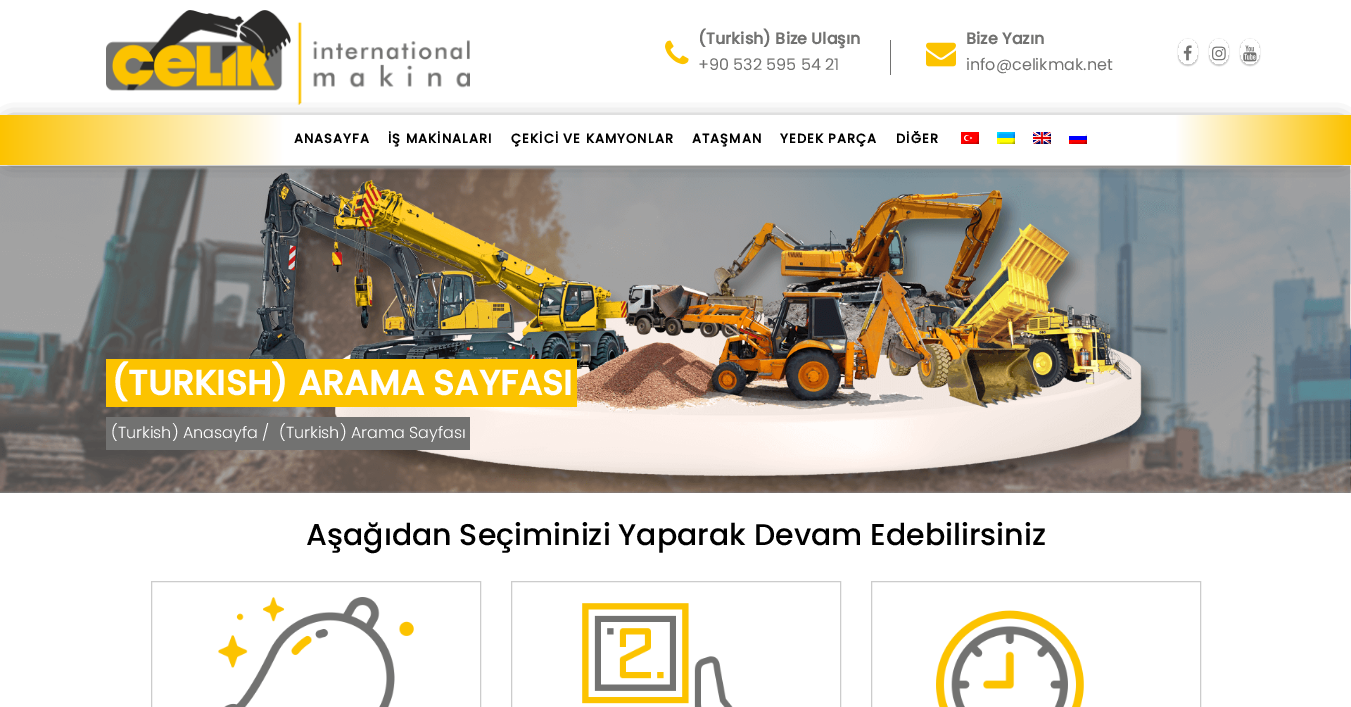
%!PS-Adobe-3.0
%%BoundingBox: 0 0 1351 707
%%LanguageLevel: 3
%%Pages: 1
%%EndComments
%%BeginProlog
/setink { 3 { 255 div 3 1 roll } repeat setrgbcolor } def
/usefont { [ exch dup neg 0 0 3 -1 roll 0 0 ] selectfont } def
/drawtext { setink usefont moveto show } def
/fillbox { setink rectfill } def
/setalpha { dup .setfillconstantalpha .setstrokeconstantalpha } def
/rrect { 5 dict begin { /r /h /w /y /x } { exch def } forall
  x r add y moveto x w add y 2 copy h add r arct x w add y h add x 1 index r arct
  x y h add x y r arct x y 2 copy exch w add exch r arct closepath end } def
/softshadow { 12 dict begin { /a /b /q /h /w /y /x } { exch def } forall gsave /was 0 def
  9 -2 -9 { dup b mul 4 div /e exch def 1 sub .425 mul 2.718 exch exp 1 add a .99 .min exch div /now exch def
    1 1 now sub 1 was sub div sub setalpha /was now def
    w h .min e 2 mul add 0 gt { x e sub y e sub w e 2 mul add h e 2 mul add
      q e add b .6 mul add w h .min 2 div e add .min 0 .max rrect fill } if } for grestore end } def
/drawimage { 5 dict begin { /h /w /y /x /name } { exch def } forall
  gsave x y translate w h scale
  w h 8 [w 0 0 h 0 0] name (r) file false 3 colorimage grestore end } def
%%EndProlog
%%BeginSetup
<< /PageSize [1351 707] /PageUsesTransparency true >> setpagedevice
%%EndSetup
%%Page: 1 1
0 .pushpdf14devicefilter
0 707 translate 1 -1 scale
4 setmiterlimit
0 0 1351 707 255 255 255 fillbox
(assets/img1.rgb) 106 10 364 95 drawimage
(assets/img2.rgb) 665 40 24 25 drawimage
(\(Turkish\) Bize Ulaşın) 698 44 /Poppins-Bold 16 114 114 113 drawtext
(+90 532 595 54 21) 698 70 /Poppins-Regular 16 114 114 113 drawtext
890 40 1 35 114 114 113 fillbox
(assets/img3.rgb) 926 42 30 25 drawimage
(Bize Yazın) 966 44 /Poppins-Bold 16 114 114 113 drawtext
(info@celikmak.net) 966 70 /Poppins-Regular 16 114 114 113 drawtext
gsave
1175 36 moveto 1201 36 lineto 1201 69 lineto 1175 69 lineto closepath 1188 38 moveto 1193.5 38 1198 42.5 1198 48 curveto 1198 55 lineto 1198 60.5 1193.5 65 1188 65 curveto 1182.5 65 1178 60.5 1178 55 curveto 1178 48 lineto 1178 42.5 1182.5 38 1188 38 curveto closepath eoclip newpath
0 0 0 setink
1178 39 20 27 10 0.5 0.2 softshadow
grestore
(assets/img4.rgb) 1183 45 9 16 drawimage
gsave
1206 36 moveto 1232 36 lineto 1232 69 lineto 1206 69 lineto closepath 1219 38 moveto 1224.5 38 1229 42.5 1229 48 curveto 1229 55 lineto 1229 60.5 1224.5 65 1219 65 curveto 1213.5 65 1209 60.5 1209 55 curveto 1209 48 lineto 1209 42.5 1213.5 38 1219 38 curveto closepath eoclip newpath
0 0 0 setink
1209 39 20 27 10 0.5 0.2 softshadow
grestore
(assets/img5.rgb) 1212 46 14 15 drawimage
gsave
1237 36 moveto 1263 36 lineto 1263 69 lineto 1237 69 lineto closepath 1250 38 moveto 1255.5 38 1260 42.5 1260 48 curveto 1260 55 lineto 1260 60.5 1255.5 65 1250 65 curveto 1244.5 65 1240 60.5 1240 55 curveto 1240 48 lineto 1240 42.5 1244.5 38 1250 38 curveto closepath eoclip newpath
0 0 0 setink
1240 39 20 27 10 0.5 0.2 softshadow
grestore
(assets/img6.rgb) 1243 45 14 17 drawimage
(assets/img11.rgb) 0 165 1351 328 drawimage
0 0 0 setink
10 125 1331 30 0 10 0.8 softshadow
gsave 0 115 moveto 1351 115 lineto 1351 165 lineto 0 165 lineto closepath clip newpath
<< /ShadingType 2 /ColorSpace /DeviceRGB /Coords [0 140 1351 140] /Extend [true true] /Function << /FunctionType 3 /Domain [0 1] /Functions [<< /FunctionType 2 /Domain [0 1] /C0 [0.988 0.765 0] /C1 [1 1 1] /N 1 >> << /FunctionType 2 /Domain [0 1] /C0 [1 1 1] /C1 [1 1 1] /N 1 >> << /FunctionType 2 /Domain [0 1] /C0 [1 1 1] /C1 [0.988 0.765 0] /N 1 >>] /Bounds [0.21 0.87] /Encode [0 1 0 1 0 1] >> >> shfill grestore
/Poppins-Bold 13 usefont
294 143 moveto 1 0 (ANASAYFA) ashow
388 143 moveto 1 0 (İŞ MAKİNALARI) ashow
511 143 moveto 1 0 (ÇEKİCİ VE KAMYONLAR) ashow
692 143 moveto 1 0 (ATAŞMAN) ashow
780 143 moveto 1 0 (YEDEK PARÇA) ashow
896 143 moveto 1 0 (DİĞER) ashow
(assets/img7.rgb) 961 132 18 12 drawimage
(assets/img8.rgb) 997 132 18 12 drawimage
(assets/img9.rgb) 1033 132 18 12 drawimage
(assets/img10.rgb) 1069 134 18 10 drawimage
106 359 471 48 252 195 0 fillbox
(\(TURKISH\) ARAMA SAYFASI) 111 395 /Poppins-Bold 35 255 255 255 drawtext
106 417 364 33 114 114 113 fillbox
(\(Turkish\) Anasayfa) 111 438 /Poppins-Light 16 255 255 255 drawtext
(/) 262 438 /Poppins-Light 16 255 255 255 drawtext
(\(Turkish\) Arama Sayfası) 279 438 /Poppins-Light 16 255 255 255 drawtext
(Aşağıdan Seçiminizi Yaparak Devam Edebilirsiniz) 306 545 /Poppins-Medium 30 0 0 0 drawtext
204 204 204 setink
151.5 581.5 329 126 rectstroke
(assets/img12.rgb) 218 597 196 110 drawimage
511.5 581.5 329 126 rectstroke
(assets/img13.rgb) 582 603 151 104 drawimage
871.5 581.5 329 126 rectstroke
(assets/img14.rgb) 936 610 148 97 drawimage
.poppdf14devicefilter showpage
%%EOF
